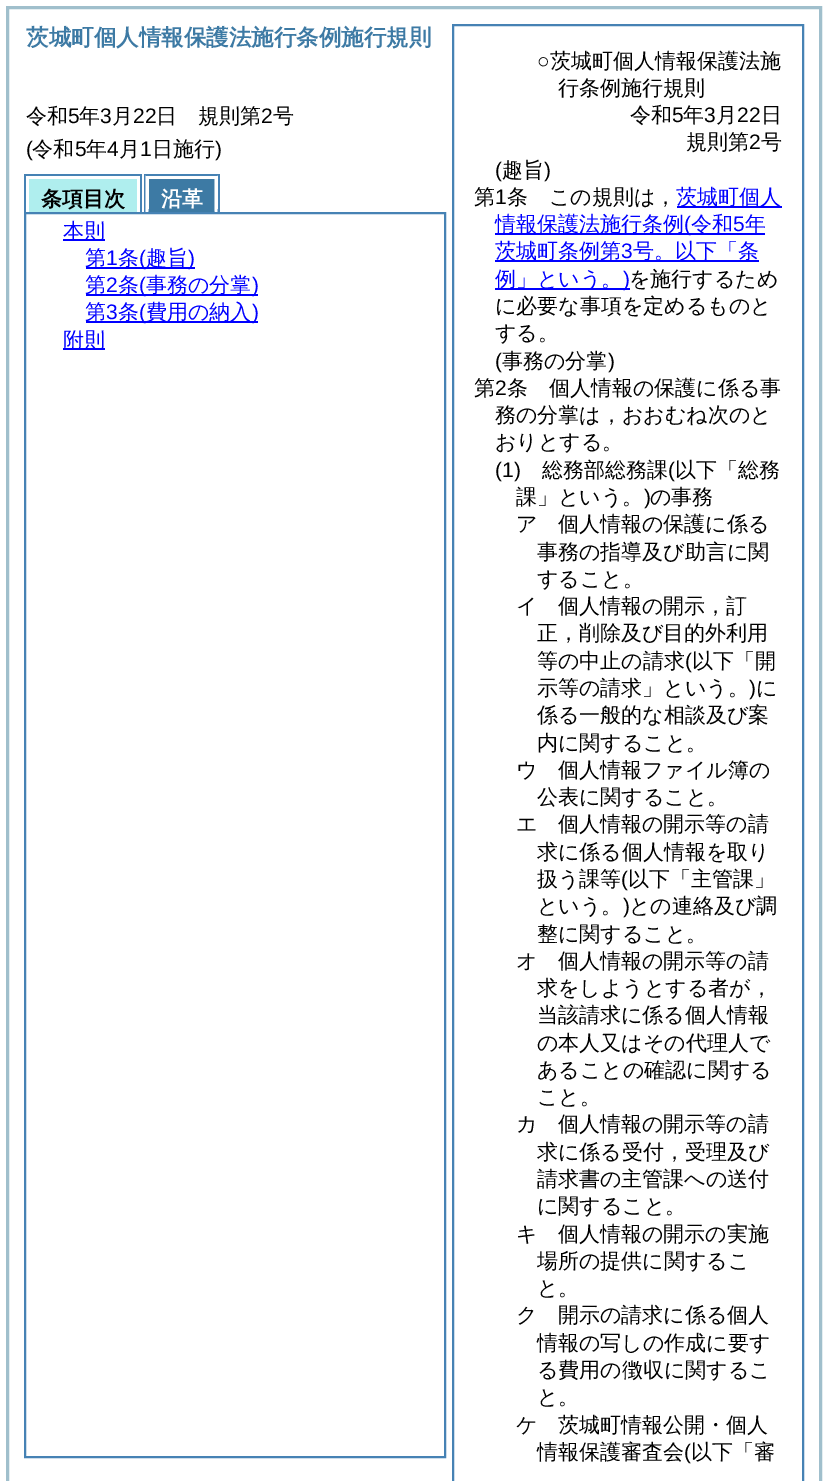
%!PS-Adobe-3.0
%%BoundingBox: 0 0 827 1481
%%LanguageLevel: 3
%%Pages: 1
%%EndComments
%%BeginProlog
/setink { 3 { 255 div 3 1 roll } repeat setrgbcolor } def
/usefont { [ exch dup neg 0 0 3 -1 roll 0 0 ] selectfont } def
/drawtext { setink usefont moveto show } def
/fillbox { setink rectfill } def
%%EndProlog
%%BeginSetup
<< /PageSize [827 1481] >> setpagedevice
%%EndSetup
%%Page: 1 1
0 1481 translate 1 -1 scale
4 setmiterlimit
0 0 827 1481 255 255 255 fillbox
160 191 204 setink
3 setlinewidth
7.5 7.5 813 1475 rectstroke
(茨城町個人情報保護法施行条例施行規則) 26 45 /WenQuanYiZenHei-Bold 22.5 61 122 164 drawtext
(令和) 26 123 /WenQuanYiZenHei-Medium 21 0 0 0 drawtext
(5) 68 123 /LiberationSans-Regular 21 0 0 0 drawtext
(年) 79 123 /WenQuanYiZenHei-Medium 21 0 0 0 drawtext
(3) 100 123 /LiberationSans-Regular 21 0 0 0 drawtext
(月) 112 123 /WenQuanYiZenHei-Medium 21 0 0 0 drawtext
(22) 133 123 /LiberationSans-Regular 21 0 0 0 drawtext
(日　規則第) 156 123 /WenQuanYiZenHei-Medium 21 0 0 0 drawtext
(2) 261 123 /LiberationSans-Regular 21 0 0 0 drawtext
(号) 273 123 /WenQuanYiZenHei-Medium 21 0 0 0 drawtext
(\() 26 156 /LiberationSans-Regular 21 0 0 0 drawtext
(令和) 32 156 /WenQuanYiZenHei-Medium 21 0 0 0 drawtext
(5) 75 156 /LiberationSans-Regular 21 0 0 0 drawtext
(年) 86 156 /WenQuanYiZenHei-Medium 21 0 0 0 drawtext
(4) 107 156 /LiberationSans-Regular 21 0 0 0 drawtext
(月) 119 156 /WenQuanYiZenHei-Medium 21 0 0 0 drawtext
(1) 140 156 /LiberationSans-Regular 21 0 0 0 drawtext
(日施行) 152 156 /WenQuanYiZenHei-Medium 21 0 0 0 drawtext
(\)) 215 156 /LiberationSans-Regular 21 0 0 0 drawtext
24 174 117 2 70 130 180 fillbox
140 174 2 39 70 130 180 fillbox
24 174 2 39 70 130 180 fillbox
29 179 108 33 175 238 238 fillbox
(条項目次) 41 206 /WenQuanYiZenHei-Bold 21 0 0 0 drawtext
144 174 75 2 70 130 180 fillbox
218 174 2 39 70 130 180 fillbox
144 209 75 3 70 130 180 fillbox
144 174 2 39 70 130 180 fillbox
149 179 66 33 61 122 164 fillbox
255 255 255 setink
217.5 175.5 moveto 217.5 213 lineto 214.5 211.5 lineto 214.5 178.5 lineto closepath fill
145.5 213 moveto 145.5 175.5 lineto 148.5 178.5 lineto 148.5 211.5 lineto closepath fill
(沿革) 161 206 /WenQuanYiZenHei-Bold 21 255 255 255 drawtext
70 130 180 setink
2 setlinewidth
25 213 420 1244 rectstroke
63 239 42 2 0 0 255 fillbox
(本則) 63 238 /WenQuanYiZenHei-Medium 21 0 0 255 drawtext
86 267 109 2 0 0 255 fillbox
(第) 85 265 /WenQuanYiZenHei-Medium 21 0 0 255 drawtext
(1) 106 265 /LiberationSans-Regular 21 0 0 255 drawtext
(条) 118 265 /WenQuanYiZenHei-Medium 21 0 0 255 drawtext
(\() 139 265 /LiberationSans-Regular 21 0 0 255 drawtext
(趣旨) 146 265 /WenQuanYiZenHei-Medium 21 0 0 255 drawtext
(\)) 188 265 /LiberationSans-Regular 21 0 0 255 drawtext
86 294 172 2 0 0 255 fillbox
(第) 85 292 /WenQuanYiZenHei-Medium 21 0 0 255 drawtext
(2) 106 292 /LiberationSans-Regular 21 0 0 255 drawtext
(条) 118 292 /WenQuanYiZenHei-Medium 21 0 0 255 drawtext
(\() 139 292 /LiberationSans-Regular 21 0 0 255 drawtext
(事務の分掌) 146 292 /WenQuanYiZenHei-Medium 21 0 0 255 drawtext
(\)) 252 292 /LiberationSans-Regular 21 0 0 255 drawtext
86 321 172 2 0 0 255 fillbox
(第) 85 319 /WenQuanYiZenHei-Medium 21 0 0 255 drawtext
(3) 106 319 /LiberationSans-Regular 21 0 0 255 drawtext
(条) 118 319 /WenQuanYiZenHei-Medium 21 0 0 255 drawtext
(\() 139 319 /LiberationSans-Regular 21 0 0 255 drawtext
(費用の納入) 146 319 /WenQuanYiZenHei-Medium 21 0 0 255 drawtext
(\)) 252 319 /LiberationSans-Regular 21 0 0 255 drawtext
63 348 42 2 0 0 255 fillbox
(附則) 63 347 /WenQuanYiZenHei-Medium 21 0 0 255 drawtext
70 130 180 setink
453 25 350 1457 rectstroke
(○) 537 68 /LiberationSans-Regular 21 0 0 0 drawtext
(茨城町個人情報保護法施) 550 68 /WenQuanYiZenHei-Medium 21 0 0 0 drawtext
(行条例施行規則) 558 95 /WenQuanYiZenHei-Medium 21 0 0 0 drawtext
(令和) 630 122 /WenQuanYiZenHei-Medium 21 0 0 0 drawtext
(5) 672 122 /LiberationSans-Regular 21 0 0 0 drawtext
(年) 683 122 /WenQuanYiZenHei-Medium 21 0 0 0 drawtext
(3) 704 122 /LiberationSans-Regular 21 0 0 0 drawtext
(月) 716 122 /WenQuanYiZenHei-Medium 21 0 0 0 drawtext
(22) 737 122 /LiberationSans-Regular 21 0 0 0 drawtext
(日) 761 122 /WenQuanYiZenHei-Medium 21 0 0 0 drawtext
(規則第) 686 149 /WenQuanYiZenHei-Medium 21 0 0 0 drawtext
(2) 749 149 /LiberationSans-Regular 21 0 0 0 drawtext
(号) 761 149 /WenQuanYiZenHei-Medium 21 0 0 0 drawtext
(\() 495 177 /LiberationSans-Regular 21 0 0 0 drawtext
(趣旨) 502 177 /WenQuanYiZenHei-Medium 21 0 0 0 drawtext
(\)) 544 177 /LiberationSans-Regular 21 0 0 0 drawtext
(第) 474 204 /WenQuanYiZenHei-Medium 21 0 0 0 drawtext
(1) 495 204 /LiberationSans-Regular 21 0 0 0 drawtext
(条) 507 204 /WenQuanYiZenHei-Medium 21 0 0 0 drawtext
(この規則は，) 549 204 /WenQuanYiZenHei-Medium 21 0 0 0 drawtext
677 206 105 2 0 0 255 fillbox
(茨城町個人) 676 204 /WenQuanYiZenHei-Medium 21 0 0 255 drawtext
495 233 270 2 0 0 255 fillbox
(情報保護法施行条例) 495 231 /WenQuanYiZenHei-Medium 21 0 0 255 drawtext
(\() 684 231 /LiberationSans-Regular 21 0 0 255 drawtext
(令和) 691 231 /WenQuanYiZenHei-Medium 21 0 0 255 drawtext
(5) 733 231 /LiberationSans-Regular 21 0 0 255 drawtext
(年) 745 231 /WenQuanYiZenHei-Medium 21 0 0 255 drawtext
495 260 264 2 0 0 255 fillbox
(茨城町条例第) 495 258 /WenQuanYiZenHei-Medium 21 0 0 255 drawtext
(3) 621 258 /LiberationSans-Regular 21 0 0 255 drawtext
(号。以下「条) 633 258 /WenQuanYiZenHei-Medium 21 0 0 255 drawtext
495 288 135 2 0 0 255 fillbox
(例」という。) 495 286 /WenQuanYiZenHei-Medium 21 0 0 255 drawtext
(\)) 623 286 /LiberationSans-Regular 21 0 0 255 drawtext
(を施行するため) 629 286 /WenQuanYiZenHei-Medium 21 0 0 0 drawtext
(に必要な事項を定めるものと) 495 313 /WenQuanYiZenHei-Medium 21 0 0 0 drawtext
(する。) 495 340 /WenQuanYiZenHei-Medium 21 0 0 0 drawtext
(\() 495 368 /LiberationSans-Regular 21 0 0 0 drawtext
(事務の分掌) 502 368 /WenQuanYiZenHei-Medium 21 0 0 0 drawtext
(\)) 608 368 /LiberationSans-Regular 21 0 0 0 drawtext
(第) 474 395 /WenQuanYiZenHei-Medium 21 0 0 0 drawtext
(2) 495 395 /LiberationSans-Regular 21 0 0 0 drawtext
(条) 507 395 /WenQuanYiZenHei-Medium 21 0 0 0 drawtext
(個人情報の保護に係る事) 549 395 /WenQuanYiZenHei-Medium 21 0 0 0 drawtext
(務の分掌は，おおむね次のと) 495 422 /WenQuanYiZenHei-Medium 21 0 0 0 drawtext
(おりとする。) 495 449 /WenQuanYiZenHei-Medium 21 0 0 0 drawtext
(\(1\)) 495 477 /LiberationSans-Regular 21 0 0 0 drawtext
(総務部総務課) 542 477 /WenQuanYiZenHei-Medium 21 0 0 0 drawtext
(\() 668 477 /LiberationSans-Regular 21 0 0 0 drawtext
(以下「総務) 675 477 /WenQuanYiZenHei-Medium 21 0 0 0 drawtext
(課」という。) 516 504 /WenQuanYiZenHei-Medium 21 0 0 0 drawtext
(\)) 644 504 /LiberationSans-Regular 21 0 0 0 drawtext
(の事務) 650 504 /WenQuanYiZenHei-Medium 21 0 0 0 drawtext
(ア) 516 531 /WenQuanYiZenHei-Medium 21 0 0 0 drawtext
(個人情報の保護に係る) 558 531 /WenQuanYiZenHei-Medium 21 0 0 0 drawtext
(事務の指導及び助言に関) 537 559 /WenQuanYiZenHei-Medium 21 0 0 0 drawtext
(すること。) 537 586 /WenQuanYiZenHei-Medium 21 0 0 0 drawtext
(イ) 516 613 /WenQuanYiZenHei-Medium 21 0 0 0 drawtext
(個人情報の開示，訂) 558 613 /WenQuanYiZenHei-Medium 21 0 0 0 drawtext
(正，削除及び目的外利用) 537 640 /WenQuanYiZenHei-Medium 21 0 0 0 drawtext
(等の中止の請求) 537 668 /WenQuanYiZenHei-Medium 21 0 0 0 drawtext
(\() 685 668 /LiberationSans-Regular 21 0 0 0 drawtext
(以下「開) 692 668 /WenQuanYiZenHei-Medium 21 0 0 0 drawtext
(示等の請求」という。) 537 695 /WenQuanYiZenHei-Medium 21 0 0 0 drawtext
(\)) 749 695 /LiberationSans-Regular 21 0 0 0 drawtext
(に) 756 695 /WenQuanYiZenHei-Medium 21 0 0 0 drawtext
(係る一般的な相談及び案) 537 722 /WenQuanYiZenHei-Medium 21 0 0 0 drawtext
(内に関すること。) 537 750 /WenQuanYiZenHei-Medium 21 0 0 0 drawtext
(ウ) 516 777 /WenQuanYiZenHei-Medium 21 0 0 0 drawtext
(個人情報ファイル簿の) 558 777 /WenQuanYiZenHei-Medium 21 0 0 0 drawtext
(公表に関すること。) 537 804 /WenQuanYiZenHei-Medium 21 0 0 0 drawtext
(エ) 516 831 /WenQuanYiZenHei-Medium 21 0 0 0 drawtext
(個人情報の開示等の請) 558 831 /WenQuanYiZenHei-Medium 21 0 0 0 drawtext
(求に係る個人情報を取り) 537 859 /WenQuanYiZenHei-Medium 21 0 0 0 drawtext
(扱う課等) 537 886 /WenQuanYiZenHei-Medium 21 0 0 0 drawtext
(\() 621 886 /LiberationSans-Regular 21 0 0 0 drawtext
(以下「主管課」) 628 886 /WenQuanYiZenHei-Medium 21 0 0 0 drawtext
(という。) 537 913 /WenQuanYiZenHei-Medium 21 0 0 0 drawtext
(\)) 623 913 /LiberationSans-Regular 21 0 0 0 drawtext
(との連絡及び調) 629 913 /WenQuanYiZenHei-Medium 21 0 0 0 drawtext
(整に関すること。) 537 941 /WenQuanYiZenHei-Medium 21 0 0 0 drawtext
(オ) 516 968 /WenQuanYiZenHei-Medium 21 0 0 0 drawtext
(個人情報の開示等の請) 558 968 /WenQuanYiZenHei-Medium 21 0 0 0 drawtext
(求をしようとする者が，) 537 995 /WenQuanYiZenHei-Medium 21 0 0 0 drawtext
(当該請求に係る個人情報) 537 1022 /WenQuanYiZenHei-Medium 21 0 0 0 drawtext
(の本人又はその代理人で) 537 1050 /WenQuanYiZenHei-Medium 21 0 0 0 drawtext
(あることの確認に関する) 537 1077 /WenQuanYiZenHei-Medium 21 0 0 0 drawtext
(こと。) 537 1104 /WenQuanYiZenHei-Medium 21 0 0 0 drawtext
(カ) 516 1131 /WenQuanYiZenHei-Medium 21 0 0 0 drawtext
(個人情報の開示等の請) 558 1131 /WenQuanYiZenHei-Medium 21 0 0 0 drawtext
(求に係る受付，受理及び) 537 1159 /WenQuanYiZenHei-Medium 21 0 0 0 drawtext
(請求書の主管課への送付) 537 1186 /WenQuanYiZenHei-Medium 21 0 0 0 drawtext
(に関すること。) 537 1213 /WenQuanYiZenHei-Medium 21 0 0 0 drawtext
(キ) 516 1241 /WenQuanYiZenHei-Medium 21 0 0 0 drawtext
(個人情報の開示の実施) 558 1241 /WenQuanYiZenHei-Medium 21 0 0 0 drawtext
(場所の提供に関するこ) 537 1268 /WenQuanYiZenHei-Medium 21 0 0 0 drawtext
(と。) 537 1295 /WenQuanYiZenHei-Medium 21 0 0 0 drawtext
(ク) 516 1322 /WenQuanYiZenHei-Medium 21 0 0 0 drawtext
(開示の請求に係る個人) 558 1322 /WenQuanYiZenHei-Medium 21 0 0 0 drawtext
(情報の写しの作成に要す) 537 1350 /WenQuanYiZenHei-Medium 21 0 0 0 drawtext
(る費用の徴収に関するこ) 537 1377 /WenQuanYiZenHei-Medium 21 0 0 0 drawtext
(と。) 537 1404 /WenQuanYiZenHei-Medium 21 0 0 0 drawtext
(ケ) 516 1432 /WenQuanYiZenHei-Medium 21 0 0 0 drawtext
(茨城町情報公開・個人) 558 1432 /WenQuanYiZenHei-Medium 21 0 0 0 drawtext
(情報保護審査会) 537 1459 /WenQuanYiZenHei-Medium 21 0 0 0 drawtext
(\() 684 1459 /LiberationSans-Regular 21 0 0 0 drawtext
(以下「審) 691 1459 /WenQuanYiZenHei-Medium 21 0 0 0 drawtext
showpage
%%EOF
